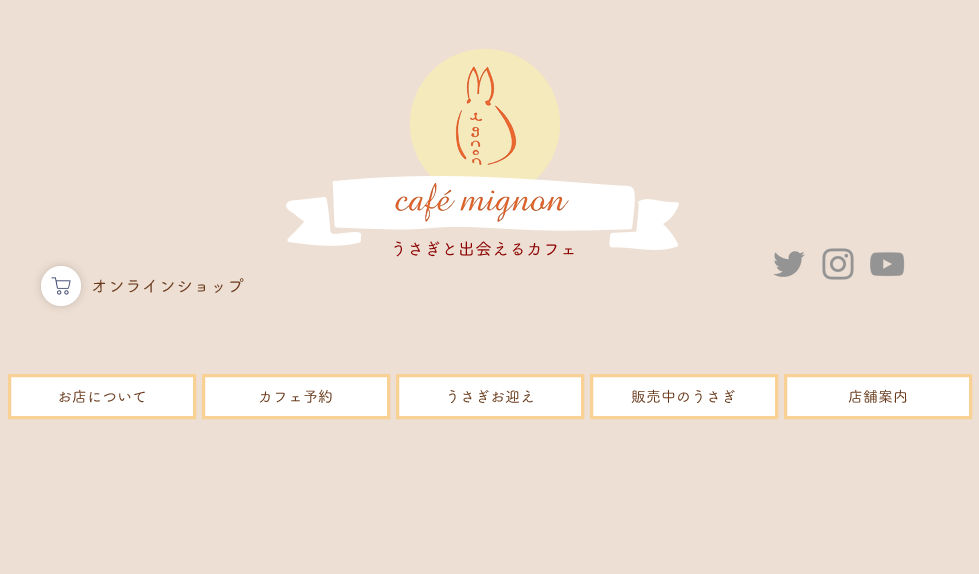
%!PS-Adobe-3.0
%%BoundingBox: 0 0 979 574
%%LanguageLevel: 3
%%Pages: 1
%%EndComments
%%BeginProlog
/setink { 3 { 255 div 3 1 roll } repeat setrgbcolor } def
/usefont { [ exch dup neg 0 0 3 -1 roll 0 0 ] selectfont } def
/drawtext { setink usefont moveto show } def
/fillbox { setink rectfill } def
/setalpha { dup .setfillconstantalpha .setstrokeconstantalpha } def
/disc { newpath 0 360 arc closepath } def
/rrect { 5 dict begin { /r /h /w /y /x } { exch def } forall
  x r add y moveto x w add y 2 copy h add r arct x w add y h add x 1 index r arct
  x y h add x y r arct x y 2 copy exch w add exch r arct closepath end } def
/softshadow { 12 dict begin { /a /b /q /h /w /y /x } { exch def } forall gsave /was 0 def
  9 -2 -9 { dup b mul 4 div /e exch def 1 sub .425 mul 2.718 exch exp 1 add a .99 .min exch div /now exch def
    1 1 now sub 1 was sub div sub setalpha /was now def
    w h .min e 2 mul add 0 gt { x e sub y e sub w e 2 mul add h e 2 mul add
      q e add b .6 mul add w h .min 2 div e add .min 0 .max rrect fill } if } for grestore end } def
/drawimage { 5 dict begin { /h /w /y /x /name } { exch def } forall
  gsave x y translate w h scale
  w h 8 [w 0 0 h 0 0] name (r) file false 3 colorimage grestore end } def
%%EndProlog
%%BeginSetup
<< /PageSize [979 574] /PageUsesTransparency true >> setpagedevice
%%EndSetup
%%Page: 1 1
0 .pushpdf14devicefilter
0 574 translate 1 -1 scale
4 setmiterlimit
0 0 979 574 237 223 211 fillbox
244 234 188 setink
485 124 75 disc fill
(assets/img1.rgb) 455 66 62 100 drawimage
(assets/img2.rgb) 286 176 393 74 drawimage
(assets/img3.rgb) 395 183 174 39 drawimage
0 0 0 setink
41 266 40 40 20 4 0.15 softshadow
255 255 255 setink
61 286 20 disc fill
(assets/img4.rgb) 51 277 20 18 drawimage
(オンラインショップ) 91 292 /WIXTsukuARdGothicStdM-Medium 17 104 57 26 drawtext
(うさぎと出会えるカフェ) 390 255 /WIXTsukuARdGothicStdM-Medium 17 139 0 0 drawtext
(assets/img5.rgb) 773 251 32 26 drawimage
(assets/img6.rgb) 822 248 32 32 drawimage
(assets/img7.rgb) 870 252 35 25 drawimage
255 255 255 setink
9.5 375.5 moveto 194.5 375.5 lineto 194.5 417.5 lineto 9.5 417.5 lineto closepath gsave fill grestore
249 209 149 setink
3 setlinewidth
stroke
(お店について) 57 402 /WIXTsukuARdGothicStdM-Medium 15 104 57 26 drawtext
255 255 255 setink
203.5 375.5 moveto 388.5 375.5 lineto 388.5 417.5 lineto 203.5 417.5 lineto closepath gsave fill grestore
249 209 149 setink
stroke
(カフェ予約) 258 402 /WIXTsukuARdGothicStdM-Medium 15 104 57 26 drawtext
255 255 255 setink
397.5 375.5 moveto 582.5 375.5 lineto 582.5 417.5 lineto 397.5 417.5 lineto closepath gsave fill grestore
249 209 149 setink
stroke
(うさぎお迎え) 445 402 /WIXTsukuARdGothicStdM-Medium 15 104 57 26 drawtext
255 255 255 setink
591.5 375.5 moveto 776.5 375.5 lineto 776.5 417.5 lineto 591.5 417.5 lineto closepath gsave fill grestore
249 209 149 setink
stroke
(販売中のうさぎ) 631 402 /WIXTsukuARdGothicStdM-Medium 15 104 57 26 drawtext
255 255 255 setink
785.5 375.5 moveto 970.5 375.5 lineto 970.5 417.5 lineto 785.5 417.5 lineto closepath gsave fill grestore
249 209 149 setink
stroke
(店舗案内) 848 402 /WIXTsukuARdGothicStdM-Medium 15 104 57 26 drawtext
.poppdf14devicefilter showpage
%%EOF
